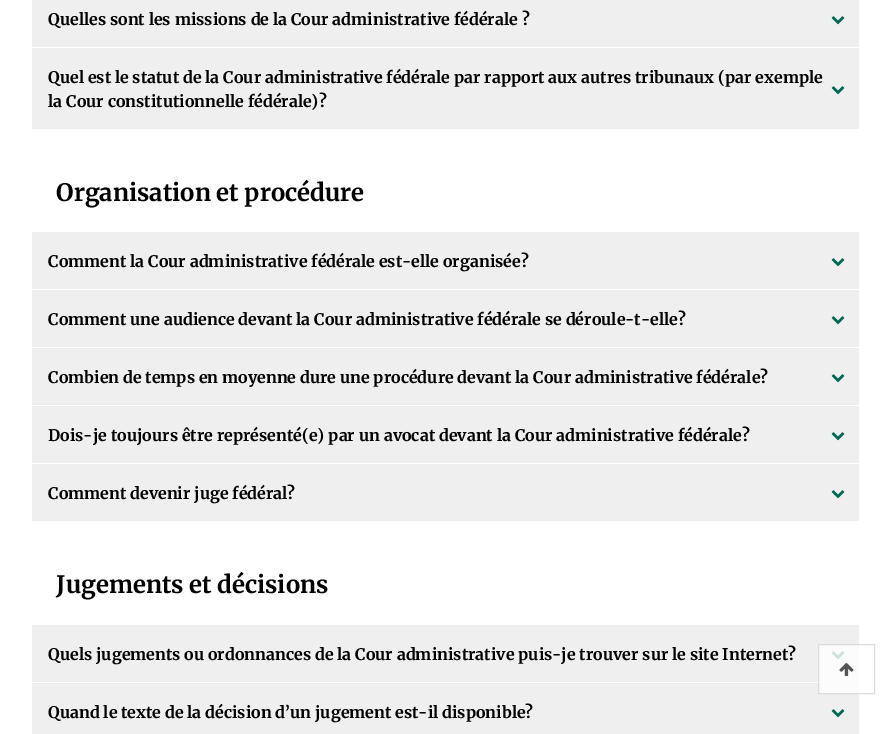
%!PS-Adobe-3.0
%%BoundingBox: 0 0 891 734
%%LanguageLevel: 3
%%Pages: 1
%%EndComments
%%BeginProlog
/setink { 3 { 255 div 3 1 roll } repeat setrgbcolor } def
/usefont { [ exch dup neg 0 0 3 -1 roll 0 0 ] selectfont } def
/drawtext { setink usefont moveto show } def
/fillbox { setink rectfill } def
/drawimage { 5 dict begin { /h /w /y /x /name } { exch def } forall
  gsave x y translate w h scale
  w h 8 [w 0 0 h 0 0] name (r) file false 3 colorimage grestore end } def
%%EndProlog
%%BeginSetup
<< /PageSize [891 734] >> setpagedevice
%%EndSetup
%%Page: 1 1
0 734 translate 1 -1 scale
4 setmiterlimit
0 0 891 734 255 255 255 fillbox
32 0 827 47 239 239 239 fillbox
(Quelles sont les missions de la Cour administrative fédérale ?) 48 25 /Merriweather-Bold 16 0 0 0 drawtext
(assets/img1.rgb) 831 16 14 9 drawimage
32 49 827 80 239 239 239 fillbox
32 48 827 1 237 237 237 fillbox
(Quel est le statut de la Cour administrative fédérale par rapport aux autres tribunaux \(par exemple) 48 83 /Merriweather-Bold 16 0 0 0 drawtext
(assets/img1.rgb) 831 86 14 9 drawimage
(la Cour constitutionnelle fédérale\)?) 48 107 /Merriweather-Bold 16 0 0 0 drawtext
(Organisation et procédure) 56 201 /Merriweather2-Bold 24 0 0 0 drawtext
32 233 827 56 239 239 239 fillbox
32 232 827 1 237 237 237 fillbox
(Comment la Cour administrative fédérale est-elle organisée?) 48 267 /Merriweather-Bold 16 0 0 0 drawtext
(assets/img1.rgb) 831 258 14 9 drawimage
32 291 827 56 239 239 239 fillbox
32 290 827 1 237 237 237 fillbox
(Comment une audience devant la Cour administrative fédérale se déroule-t-elle?) 48 325 /Merriweather-Bold 16 0 0 0 drawtext
(assets/img1.rgb) 831 316 14 9 drawimage
32 349 827 56 239 239 239 fillbox
32 348 827 1 237 237 237 fillbox
(Combien de temps en moyenne dure une procédure devant la Cour administrative fédérale?) 48 383 /Merriweather-Bold 16 0 0 0 drawtext
(assets/img1.rgb) 831 374 14 9 drawimage
32 407 827 56 239 239 239 fillbox
32 406 827 1 237 237 237 fillbox
(Dois-je toujours être représenté\(e\) par un avocat devant la Cour administrative fédérale?) 48 441 /Merriweather-Bold 16 0 0 0 drawtext
(assets/img1.rgb) 831 432 14 9 drawimage
32 465 827 56 239 239 239 fillbox
32 464 827 1 237 237 237 fillbox
(Comment devenir juge fédéral?) 48 499 /Merriweather-Bold 16 0 0 0 drawtext
(assets/img1.rgb) 831 490 14 9 drawimage
(Jugements et décisions) 56 593 /Merriweather2-Bold 24 0 0 0 drawtext
32 626 827 56 239 239 239 fillbox
819 645 40 37 252 252 252 fillbox
32 625 827 1 237 237 237 fillbox
(Quels jugements ou ordonnances de la Cour administrative puis-je trouver sur le site Internet?) 48 660 /Merriweather-Bold 16 0 0 0 drawtext
(assets/img2.rgb) 831 651 14 9 drawimage
32 684 827 50 239 239 239 fillbox
819 684 40 9 252 252 252 fillbox
32 683 786 1 237 237 237 fillbox
818 683 41 1 251 251 251 fillbox
(Quand le texte de la décision d’un jugement est-il disponible?) 48 718 /Merriweather-Bold 16 0 0 0 drawtext
(assets/img1.rgb) 831 709 14 9 drawimage
220 220 220 setink
818.5 644.5 56 49 rectstroke
(assets/img3.rgb) 839 663 15 14 drawimage
showpage
%%EOF
